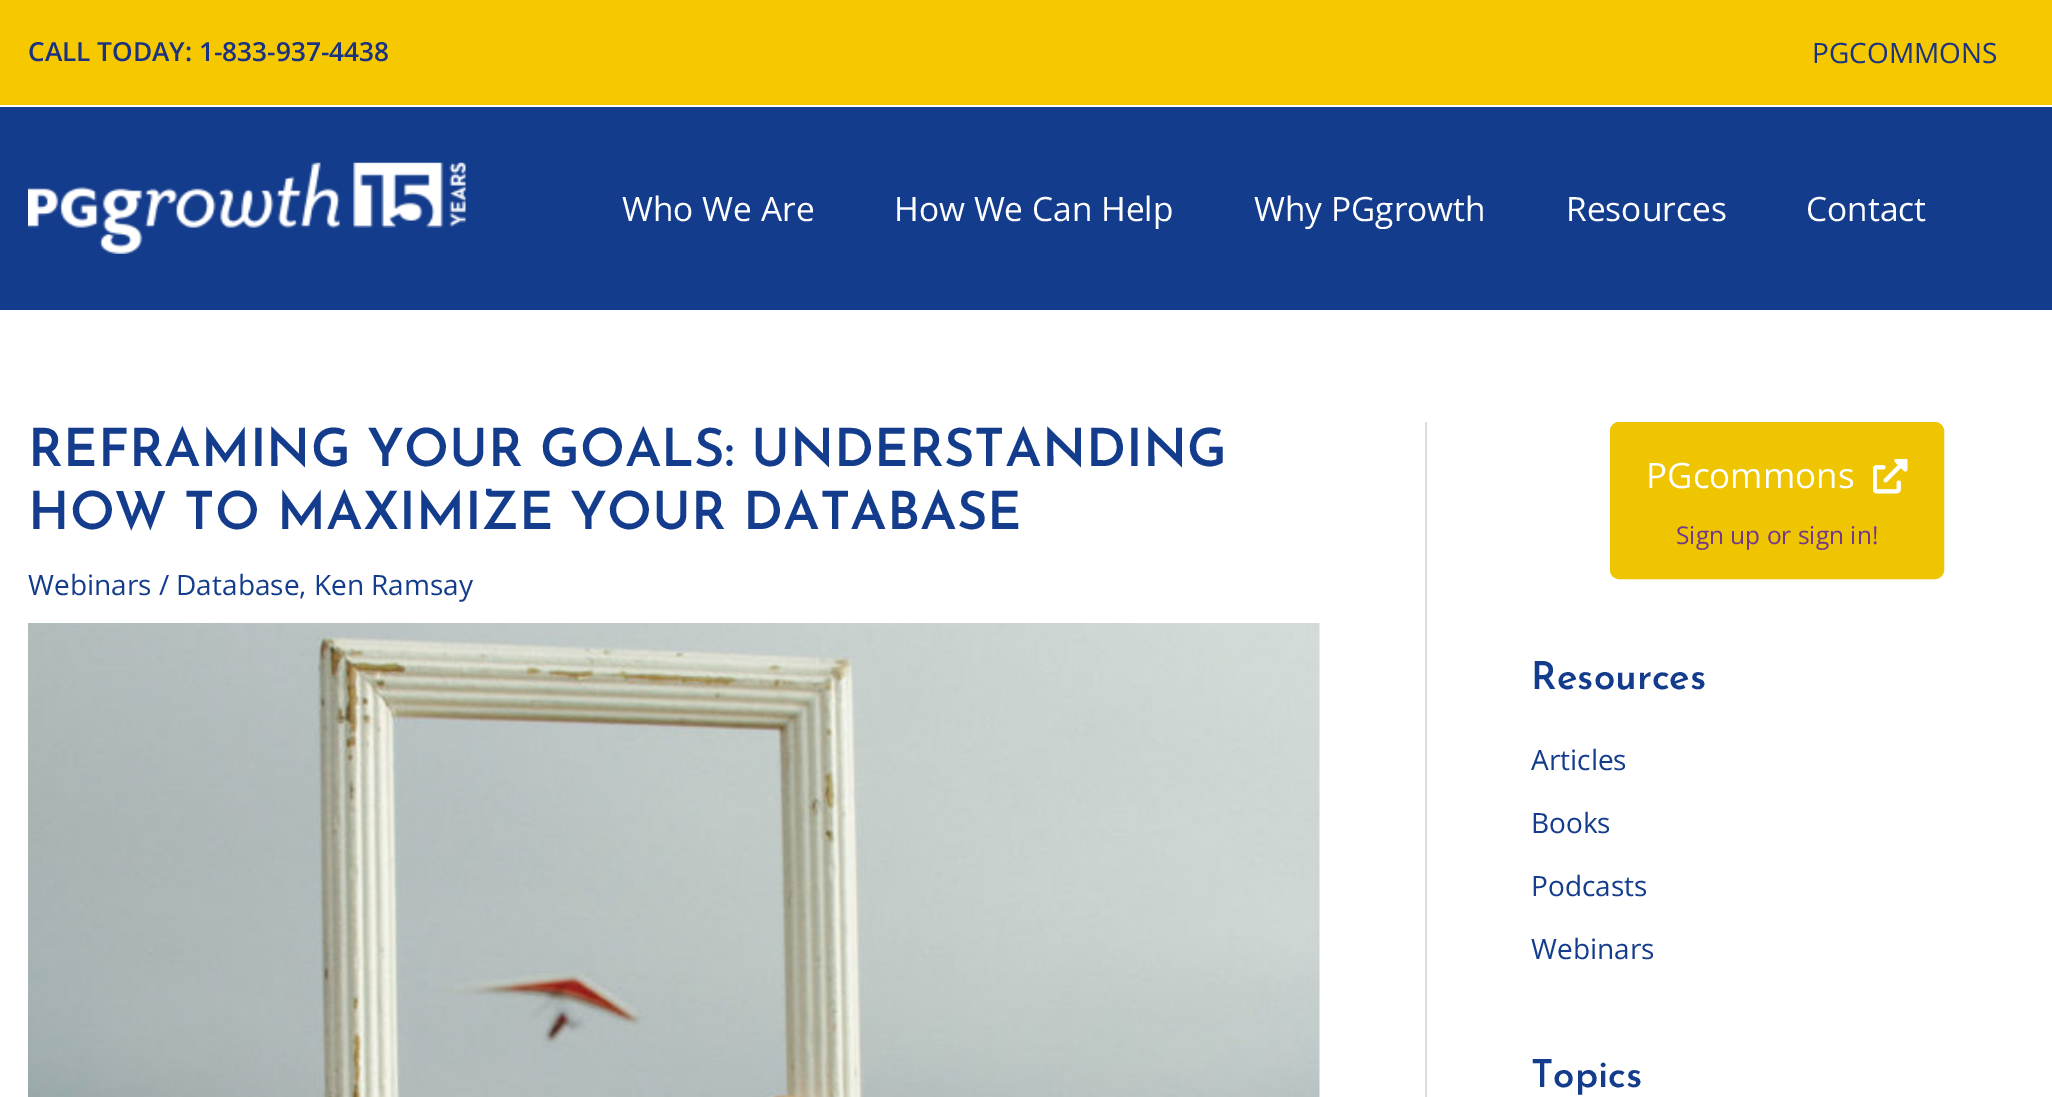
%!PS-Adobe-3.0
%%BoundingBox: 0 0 2052 1097
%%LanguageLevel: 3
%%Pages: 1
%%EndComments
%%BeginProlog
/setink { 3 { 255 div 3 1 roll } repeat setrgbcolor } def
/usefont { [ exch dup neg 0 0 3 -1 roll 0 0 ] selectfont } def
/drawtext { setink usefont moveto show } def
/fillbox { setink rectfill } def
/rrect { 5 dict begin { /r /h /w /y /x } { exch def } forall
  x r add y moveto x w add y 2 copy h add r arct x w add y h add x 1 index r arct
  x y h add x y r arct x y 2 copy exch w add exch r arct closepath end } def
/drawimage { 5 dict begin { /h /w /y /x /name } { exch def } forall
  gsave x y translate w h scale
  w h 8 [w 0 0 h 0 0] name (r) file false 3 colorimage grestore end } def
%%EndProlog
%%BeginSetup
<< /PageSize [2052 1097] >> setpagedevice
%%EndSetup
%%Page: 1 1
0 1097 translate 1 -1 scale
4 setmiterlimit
0 0 2052 1097 255 255 255 fillbox
0 0 2052 105 245 200 0 fillbox
(CALL TODAY: 1-833-937-4438) 28 61 /OpenSans-SemiBold 26.25 26 50 129 drawtext
(PGCOMMONS) 1812 63 /OpenSans-Regular 28 26 50 129 drawtext
0 107 2052 203 20 60 140 fillbox
(assets/img1.rgb) 28 162 438 92 drawimage
(Who We Are) 622 221 /OpenSans-Regular 33.5 255 255 255 drawtext
(How We Can Help) 894 221 /OpenSans-Regular 33.5 255 255 255 drawtext
(Why PGgrowth) 1254 221 /OpenSans-Regular 33.5 255 255 255 drawtext
(Resources) 1566 221 /OpenSans-Regular 33.5 255 255 255 drawtext
(Contact) 1806 221 /OpenSans-Regular 33.5 255 255 255 drawtext
1425 422 2 675 221 221 221 fillbox
(REFRAMING YOUR GOALS: UNDERSTANDING) 28 466 /JosefinSans-Thin 52.5 20 60 140 drawtext
(HOW TO MAXIMIZE YOUR DATABASE) 28 529 /JosefinSans-Thin 52.5 20 60 140 drawtext
(Webinars / Database, Ken Ramsay) 28 595 /OpenSans-Regular 28 20 60 140 drawtext
(assets/img2.rgb) 28 623 1292 474 drawimage
238 197 0 setink
1611 423 332 155 8 rrect gsave fill grestore
2 setlinewidth
stroke
(PGcommons) 1646 488 /OpenSans-Regular 35 255 255 255 drawtext
(assets/img3.rgb) 1873 459 35 35 drawimage
(Sign up or sign in!) 1676 544 /OpenSans-Regular 24.5 113 55 140 drawtext
(Resources) 1531 689 /JosefinSans-Thin 38.5 20 60 140 drawtext
(Articles) 1531 770 /OpenSans-Regular 28 20 60 140 drawtext
(Books) 1531 833 /OpenSans-Regular 28 20 60 140 drawtext
(Podcasts) 1531 896 /OpenSans-Regular 28 20 60 140 drawtext
(Webinars) 1531 959 /OpenSans-Regular 28 20 60 140 drawtext
(Topics) 1531 1087 /JosefinSans-Thin 38.5 20 60 140 drawtext
showpage
%%EOF
